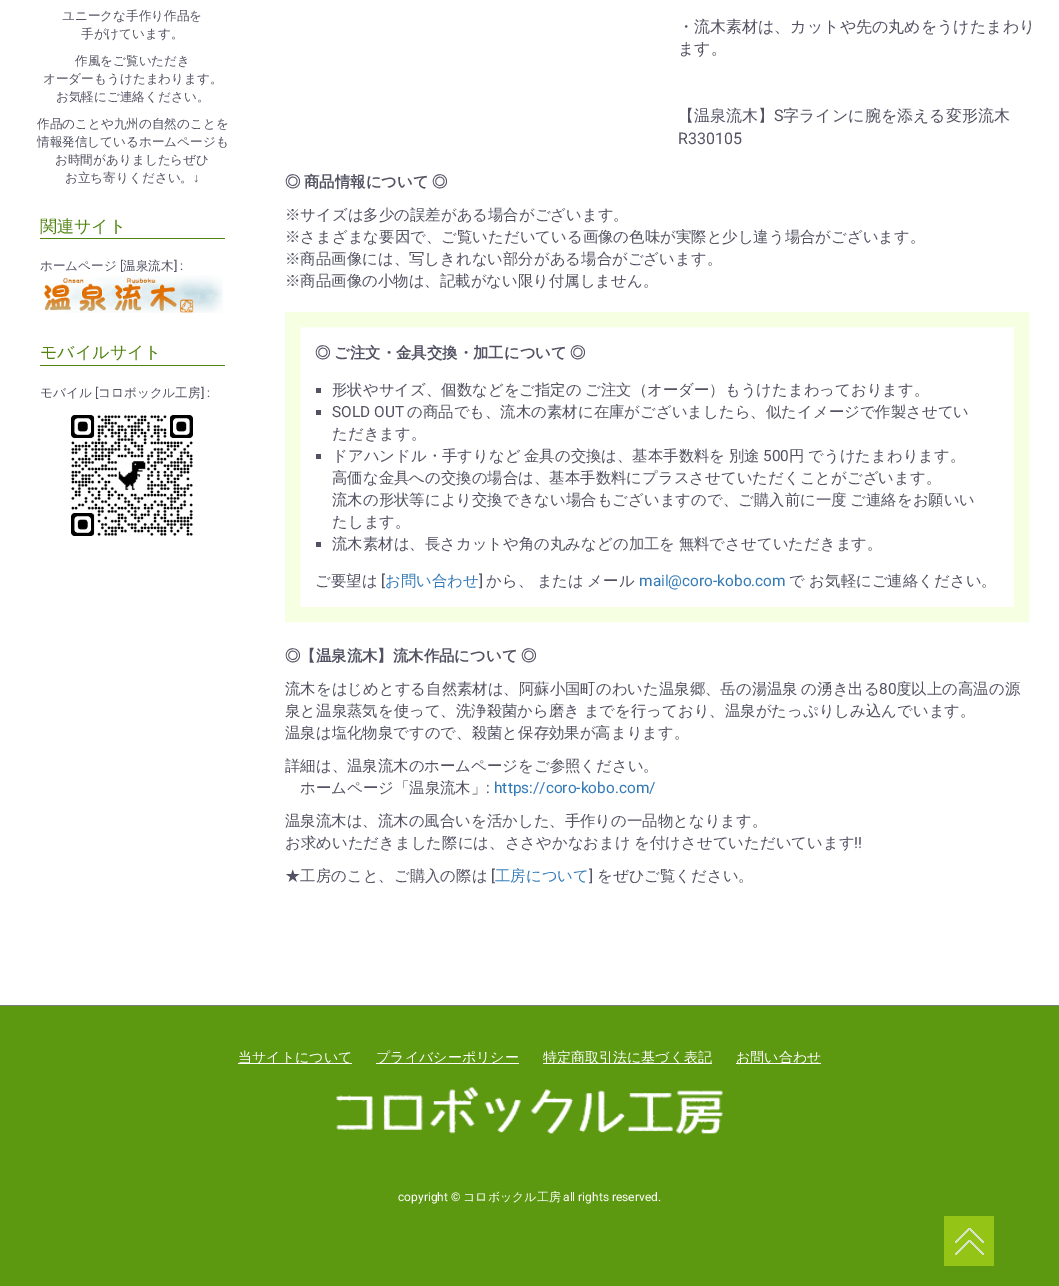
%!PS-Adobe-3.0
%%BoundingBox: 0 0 1059 1286
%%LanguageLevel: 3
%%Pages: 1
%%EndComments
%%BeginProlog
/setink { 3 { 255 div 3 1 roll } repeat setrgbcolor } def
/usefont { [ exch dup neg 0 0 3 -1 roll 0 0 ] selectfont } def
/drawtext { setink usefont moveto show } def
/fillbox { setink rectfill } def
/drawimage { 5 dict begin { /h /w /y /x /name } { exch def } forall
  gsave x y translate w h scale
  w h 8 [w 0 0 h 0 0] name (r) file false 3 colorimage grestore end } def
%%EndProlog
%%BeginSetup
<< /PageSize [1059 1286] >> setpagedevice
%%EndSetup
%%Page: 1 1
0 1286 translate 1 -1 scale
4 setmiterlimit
0 0 1059 1286 255 255 255 fillbox
(ユニークな手作り作品を) 62 20 /WenQuanYiZenHei-Medium 12.6 82 82 99 drawtext
(手がけています。) 81 38 /WenQuanYiZenHei-Medium 12.6 82 82 99 drawtext
(作風をご覧いただき) 75 65 /WenQuanYiZenHei-Medium 12.6 82 82 99 drawtext
(オーダーもうけたまわります。) 43 83 /WenQuanYiZenHei-Medium 12.6 82 82 99 drawtext
(お気軽にご連絡ください。) 56 101 /WenQuanYiZenHei-Medium 12.6 82 82 99 drawtext
(作品のことや九州の自然のことを) 37 128 /WenQuanYiZenHei-Medium 12.6 82 82 99 drawtext
(情報発信しているホームページも) 37 146 /WenQuanYiZenHei-Medium 12.6 82 82 99 drawtext
(お時間がありましたらぜひ) 55 164 /WenQuanYiZenHei-Medium 12.6 82 82 99 drawtext
(お立ち寄りください。) 65 182 /WenQuanYiZenHei-Medium 12.6 82 82 99 drawtext
(↓) 193 182 /LiberationSans-Regular 12.6 82 82 99 drawtext
40 238 185 1 80 132 16 fillbox
(関連サイト) 40 232 /WenQuanYiZenHei-Medium 17 80 132 16 drawtext
(ホームページ) 40 270 /WenQuanYiZenHei-Medium 12.6 82 82 99 drawtext
([) 120 270 /Roboto-Regular 12.6 82 82 99 drawtext
(温泉流木) 123 270 /WenQuanYiZenHei-Medium 12.6 82 82 99 drawtext
(] :) 174 270 /Roboto-Regular 12.6 82 82 99 drawtext
(assets/img1.rgb) 44 275 179 38 drawimage
40 365 185 1 80 132 16 fillbox
(モバイルサイト) 40 358 /WenQuanYiZenHei-Medium 17 80 132 16 drawtext
(モバイル) 40 397 /WenQuanYiZenHei-Medium 12.6 82 82 99 drawtext
([) 95 397 /Roboto-Regular 12.6 82 82 99 drawtext
(コロボックル工房) 98 397 /WenQuanYiZenHei-Medium 12.6 82 82 99 drawtext
(] :) 201 397 /Roboto-Regular 12.6 82 82 99 drawtext
(assets/img2.rgb) 71 415 122 121 drawimage
(・流木素材は、カットや先の丸めをうけたまわり) 678 32 /WenQuanYiZenHei-Medium 16 82 82 99 drawtext
(ます。) 678 54 /WenQuanYiZenHei-Medium 16 82 82 99 drawtext
(【温泉流木】) 678 121 /WenQuanYiZenHei-Medium 16 82 82 99 drawtext
(S) 774 121 /Roboto-Regular 16 82 82 99 drawtext
(字ラインに腕を添える変形流木) 783 121 /WenQuanYiZenHei-Medium 16 82 82 99 drawtext
(R330105) 678 144 /Roboto-Regular 16 82 82 99 drawtext
/WenQuanYiZenHei-Bold 15.4 usefont
285 187 moveto -1 0 32 (◎ 商品情報について ◎) widthshow
(※サイズは多少の誤差がある場合がございます。) 285 220 /WenQuanYiZenHei-Medium 15.4 82 82 99 drawtext
(※さまざまな要因で、ご覧いただいている画像の色味が実際と少し違う場合がございます。) 285 242 /WenQuanYiZenHei-Medium 15.4 82 82 99 drawtext
(※商品画像には、写しきれない部分がある場合がございます。) 285 264 /WenQuanYiZenHei-Medium 15.4 82 82 99 drawtext
(※商品画像の小物は、記載がない限り付属しません。) 285 286 /WenQuanYiZenHei-Medium 15.4 82 82 99 drawtext
246 255 226 setink
15 setlinewidth
292.5 319.5 729 295 rectstroke
/WenQuanYiZenHei-Bold 15.4 usefont
82 82 99 setink
315 358 moveto -1 0 32 (◎ ご注文・金具交換・加工について ◎) widthshow
316 388 5 5 82 82 99 fillbox
/WenQuanYiZenHei-Medium 15.4 usefont
332 395 moveto -1 0 32 (形状やサイズ、個数などをご指定の ご注文（オーダー）もうけたまわっております。) widthshow
316 410 5 5 82 82 99 fillbox
(SOLD OUT) 332 417 /Roboto-Regular 15.4 82 82 99 drawtext
(の商品でも、流木の素材に在庫がございましたら、似たイメージで作製させてい) 407 417 /WenQuanYiZenHei-Medium 15.4 82 82 99 drawtext
(ただきます。) 332 439 /WenQuanYiZenHei-Medium 15.4 82 82 99 drawtext
316 454 5 5 82 82 99 fillbox
332 461 moveto -1 0 32 (ドアハンドル・手すりなど 金具の交換は、基本手数料を 別途) widthshow
(500) 763 461 /Roboto-Regular 15.4 82 82 99 drawtext
/WenQuanYiZenHei-Medium 15.4 usefont
789 461 moveto -1 0 32 (円 でうけたまわります。) widthshow
(高価な金具への交換の場合は、基本手数料にプラスさせていただくことがございます。) 332 483 /WenQuanYiZenHei-Medium 15.4 82 82 99 drawtext
332 505 moveto -1 0 32 (流木の形状等により交換できない場合もございますので、ご購入前に一度 ご連絡をお願いい) widthshow
(たします。) 332 527 /WenQuanYiZenHei-Medium 15.4 82 82 99 drawtext
316 542 5 5 82 82 99 fillbox
332 549 moveto -1 0 32 (流木素材は、長さカットや角の丸みなどの加工を 無料でさせていただきます。) widthshow
(ご要望は) 315 586 /WenQuanYiZenHei-Medium 15.4 82 82 99 drawtext
([) 381 586 /Roboto-Regular 15.4 82 82 99 drawtext
(お問い合わせ) 385 586 /WenQuanYiZenHei-Medium 15.4 51 122 183 drawtext
(]) 479 586 /Roboto-Regular 15.4 82 82 99 drawtext
/WenQuanYiZenHei-Medium 15.4 usefont
486 586 moveto -1 0 32 (から、 または メール) widthshow
(mail@coro-kobo.com) 639 586 /Roboto-Regular 15.4 51 122 183 drawtext
(で お気軽にご連絡ください。) 789 586 /WenQuanYiZenHei-Medium 15.4 82 82 99 drawtext
/WenQuanYiZenHei-Bold 15.4 usefont
285 661 moveto -1 0 32 (◎【温泉流木】流木作品について ◎) widthshow
/WenQuanYiZenHei-Medium 15.4 usefont
285 694 moveto -1 0 32 (流木をはじめとする自然素材は、阿蘇小国町のわいた温泉郷、岳の湯温泉 の湧き出る) widthshow
(80) 879 694 /Roboto-Regular 15.4 82 82 99 drawtext
(度以上の高温の源) 896 694 /WenQuanYiZenHei-Medium 15.4 82 82 99 drawtext
285 716 moveto -1 0 32 (泉と温泉蒸気を使って、洗浄殺菌から磨き までを行っており、温泉がたっぷりしみ込んでいます。) widthshow
(温泉は塩化物泉ですので、殺菌と保存効果が高まります。) 285 738 /WenQuanYiZenHei-Medium 15.4 82 82 99 drawtext
(詳細は、温泉流木のホームページをご参照ください。) 285 771 /WenQuanYiZenHei-Medium 15.4 82 82 99 drawtext
(ホームページ「温泉流木」) 300 793 /WenQuanYiZenHei-Medium 15.4 82 82 99 drawtext
(:) 486 793 /Roboto-Regular 15.4 82 82 99 drawtext
(https://coro-kobo.com/) 494 793 /Roboto-Regular 15.4 51 122 183 drawtext
(温泉流木は、流木の風合いを活かした、手作りの一品物となります。) 285 826 /WenQuanYiZenHei-Medium 15.4 82 82 99 drawtext
285 848 moveto -1 0 32 (お求めいただきました際には、ささやかなおまけ を付けさせていただいています) widthshow
(!!) 854 848 /Roboto-Regular 15.4 82 82 99 drawtext
(★工房のこと、ご購入の際は) 285 881 /WenQuanYiZenHei-Medium 15.4 82 82 99 drawtext
([) 491 881 /Roboto-Regular 15.4 82 82 99 drawtext
(工房について) 495 881 /WenQuanYiZenHei-Medium 15.4 51 122 183 drawtext
(]) 589 881 /Roboto-Regular 15.4 82 82 99 drawtext
(をぜひご覧ください。) 597 881 /WenQuanYiZenHei-Medium 15.4 82 82 99 drawtext
0 1006 1059 280 92 152 16 fillbox
0 1005 1059 1 125 125 125 fillbox
238 1063 114 1 255 255 255 fillbox
(当サイトについて) 238 1062 /WenQuanYiZenHei-Medium 14 255 255 255 drawtext
376 1063 143 1 255 255 255 fillbox
(プライバシーポリシー) 376 1062 /WenQuanYiZenHei-Medium 14 255 255 255 drawtext
543 1063 169 1 255 255 255 fillbox
(特定商取引法に基づく表記) 543 1062 /WenQuanYiZenHei-Medium 14 255 255 255 drawtext
736 1063 85 1 255 255 255 fillbox
(お問い合わせ) 736 1062 /WenQuanYiZenHei-Medium 14 255 255 255 drawtext
(assets/img3.rgb) 336 1087 387 48 drawimage
(copyright ©) 398 1201 /Roboto-Regular 12 255 255 255 drawtext
(コロボックル工房) 463 1201 /WenQuanYiZenHei-Medium 12 255 255 255 drawtext
(all rights reserved.) 563 1201 /Roboto-Regular 12 255 255 255 drawtext
(assets/img4.rgb) 944 1216 50 50 drawimage
showpage
%%EOF
